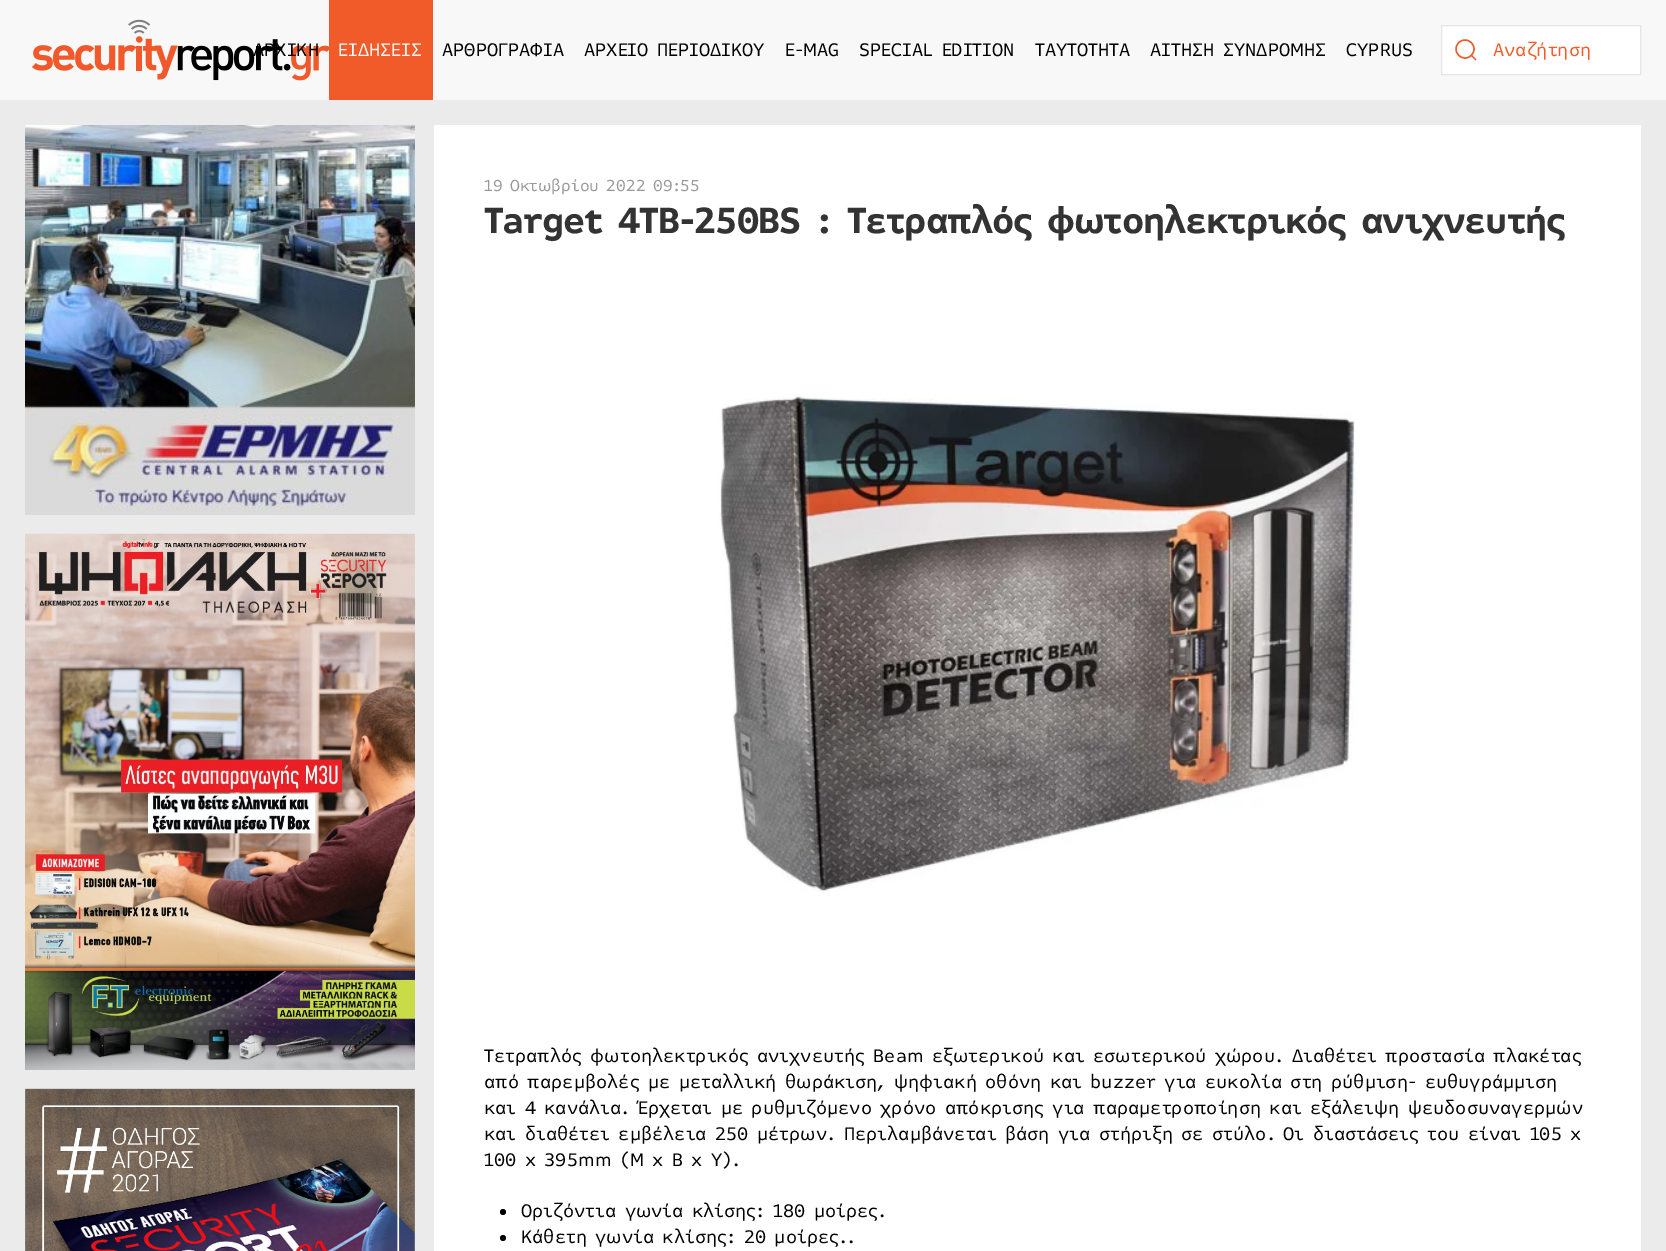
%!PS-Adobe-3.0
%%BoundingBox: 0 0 1666 1251
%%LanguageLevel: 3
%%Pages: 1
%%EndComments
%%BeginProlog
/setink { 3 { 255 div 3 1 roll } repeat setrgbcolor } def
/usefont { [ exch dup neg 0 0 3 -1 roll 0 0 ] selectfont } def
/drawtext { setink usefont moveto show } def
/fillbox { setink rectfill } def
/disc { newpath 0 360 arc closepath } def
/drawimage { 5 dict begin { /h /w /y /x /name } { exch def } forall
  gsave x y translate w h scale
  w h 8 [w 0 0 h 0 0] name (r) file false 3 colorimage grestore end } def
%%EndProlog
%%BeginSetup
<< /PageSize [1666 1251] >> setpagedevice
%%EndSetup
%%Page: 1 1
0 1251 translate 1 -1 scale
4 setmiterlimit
0 0 1666 1251 235 235 236 fillbox
0 0 1666 100 248 248 248 fillbox
(assets/img1.rgb) 32 19 297 62 drawimage
(ΑΡΧΙΚΗ) 253 56 /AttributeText-Regular 20 0 0 0 drawtext
329 0 104 100 241 90 41 fillbox
(ΕΙΔΗΣΕΙΣ) 338 56 /AttributeText-Regular 20 255 255 255 drawtext
(ΑΡΘΡΟΓΡΑΦΙΑ) 442 56 /AttributeText-Regular 20 0 0 0 drawtext
(ΑΡΧΕΙΟ ΠΕΡΙΟΔΙΚΟΥ) 584 56 /AttributeText-Regular 20 0 0 0 drawtext
(E-MAG) 785 56 /AttributeText-Regular 20 0 0 0 drawtext
(SPECIAL EDITION) 859 56 /AttributeText-Regular 20 0 0 0 drawtext
(ΤΑΥΤΟΤΗΤΑ) 1035 56 /AttributeText-Regular 20 0 0 0 drawtext
(ΑΙΤΗΣΗ ΣΥΝΔΡΟΜΗΣ) 1150 56 /AttributeText-Regular 20 0 0 0 drawtext
(CYPRUS) 1346 56 /AttributeText-Regular 20 0 0 0 drawtext
255 255 255 setink
1441.5 25.5 moveto 1640.5 25.5 lineto 1640.5 74.5 lineto 1441.5 74.5 lineto closepath gsave fill grestore
229 229 229 setink
stroke
241 90 41 setink
1.4 setlinewidth
1465 49 9 disc stroke
1471 55 moveto 1476 60 lineto closepath stroke
(Αναζήτηση) 1493 56 /AttributeText-Regular 20 241 90 41 drawtext
(assets/img2.rgb) 25 125 390 390 drawimage
(assets/img3.rgb) 25 533 390 537 drawimage
(assets/img4.rgb) 25 1088 390 163 drawimage
434 125 1207 1126 255 255 255 fillbox
(19 Οκτωβρίου 2022 09:55) 484 191 /AttributeText-Regular 17.5 153 153 153 drawtext
/AttributeText-Bold 40 usefont
51 51 51 setink
484 233 moveto -1.25 0 (Target 4TB-250BS : Τετραπλός φωτοηλεκτρικός ανιχνευτής) ashow
(assets/img5.rgb) 719 394 638 498 drawimage
(Τετραπλός φωτοηλεκτρικός ανιχνευτής Beam εξωτερικού και εσωτερικού χώρου. Διαθέτει προστασία πλακέτας) 484 1062 /AttributeText-Regular 20 0 0 0 drawtext
(από παρεμβολές με μεταλλική θωράκιση, ψηφιακή οθόνη και buzzer για ευκολία στη ρύθμιση- ευθυγράμμιση) 484 1088 /AttributeText-Regular 20 0 0 0 drawtext
(και 4 κανάλια. Έρχεται με ρυθμιζόμενο χρόνο απόκρισης για παραμετροποίηση και εξάλειψη ψευδοσυναγερμών) 484 1114 /AttributeText-Regular 20 0 0 0 drawtext
(και διαθέτει εμβέλεια 250 μέτρων. Περιλαμβάνεται βάση για στήριξη σε στύλο. Οι διαστάσεις του είναι 105 x) 484 1140 /AttributeText-Regular 20 0 0 0 drawtext
(100 x 395mm \(M x B x Y\).) 484 1166 /AttributeText-Regular 20 0 0 0 drawtext
503 1212 3 disc fill
(Οριζόντια γωνία κλίσης: 180 μοίρες.) 521 1217 /AttributeText-Regular 20 0 0 0 drawtext
503 1238 3 disc fill
(Κάθετη γωνία κλίσης: 20 μοίρες..) 521 1243 /AttributeText-Regular 20 0 0 0 drawtext
showpage
%%EOF
